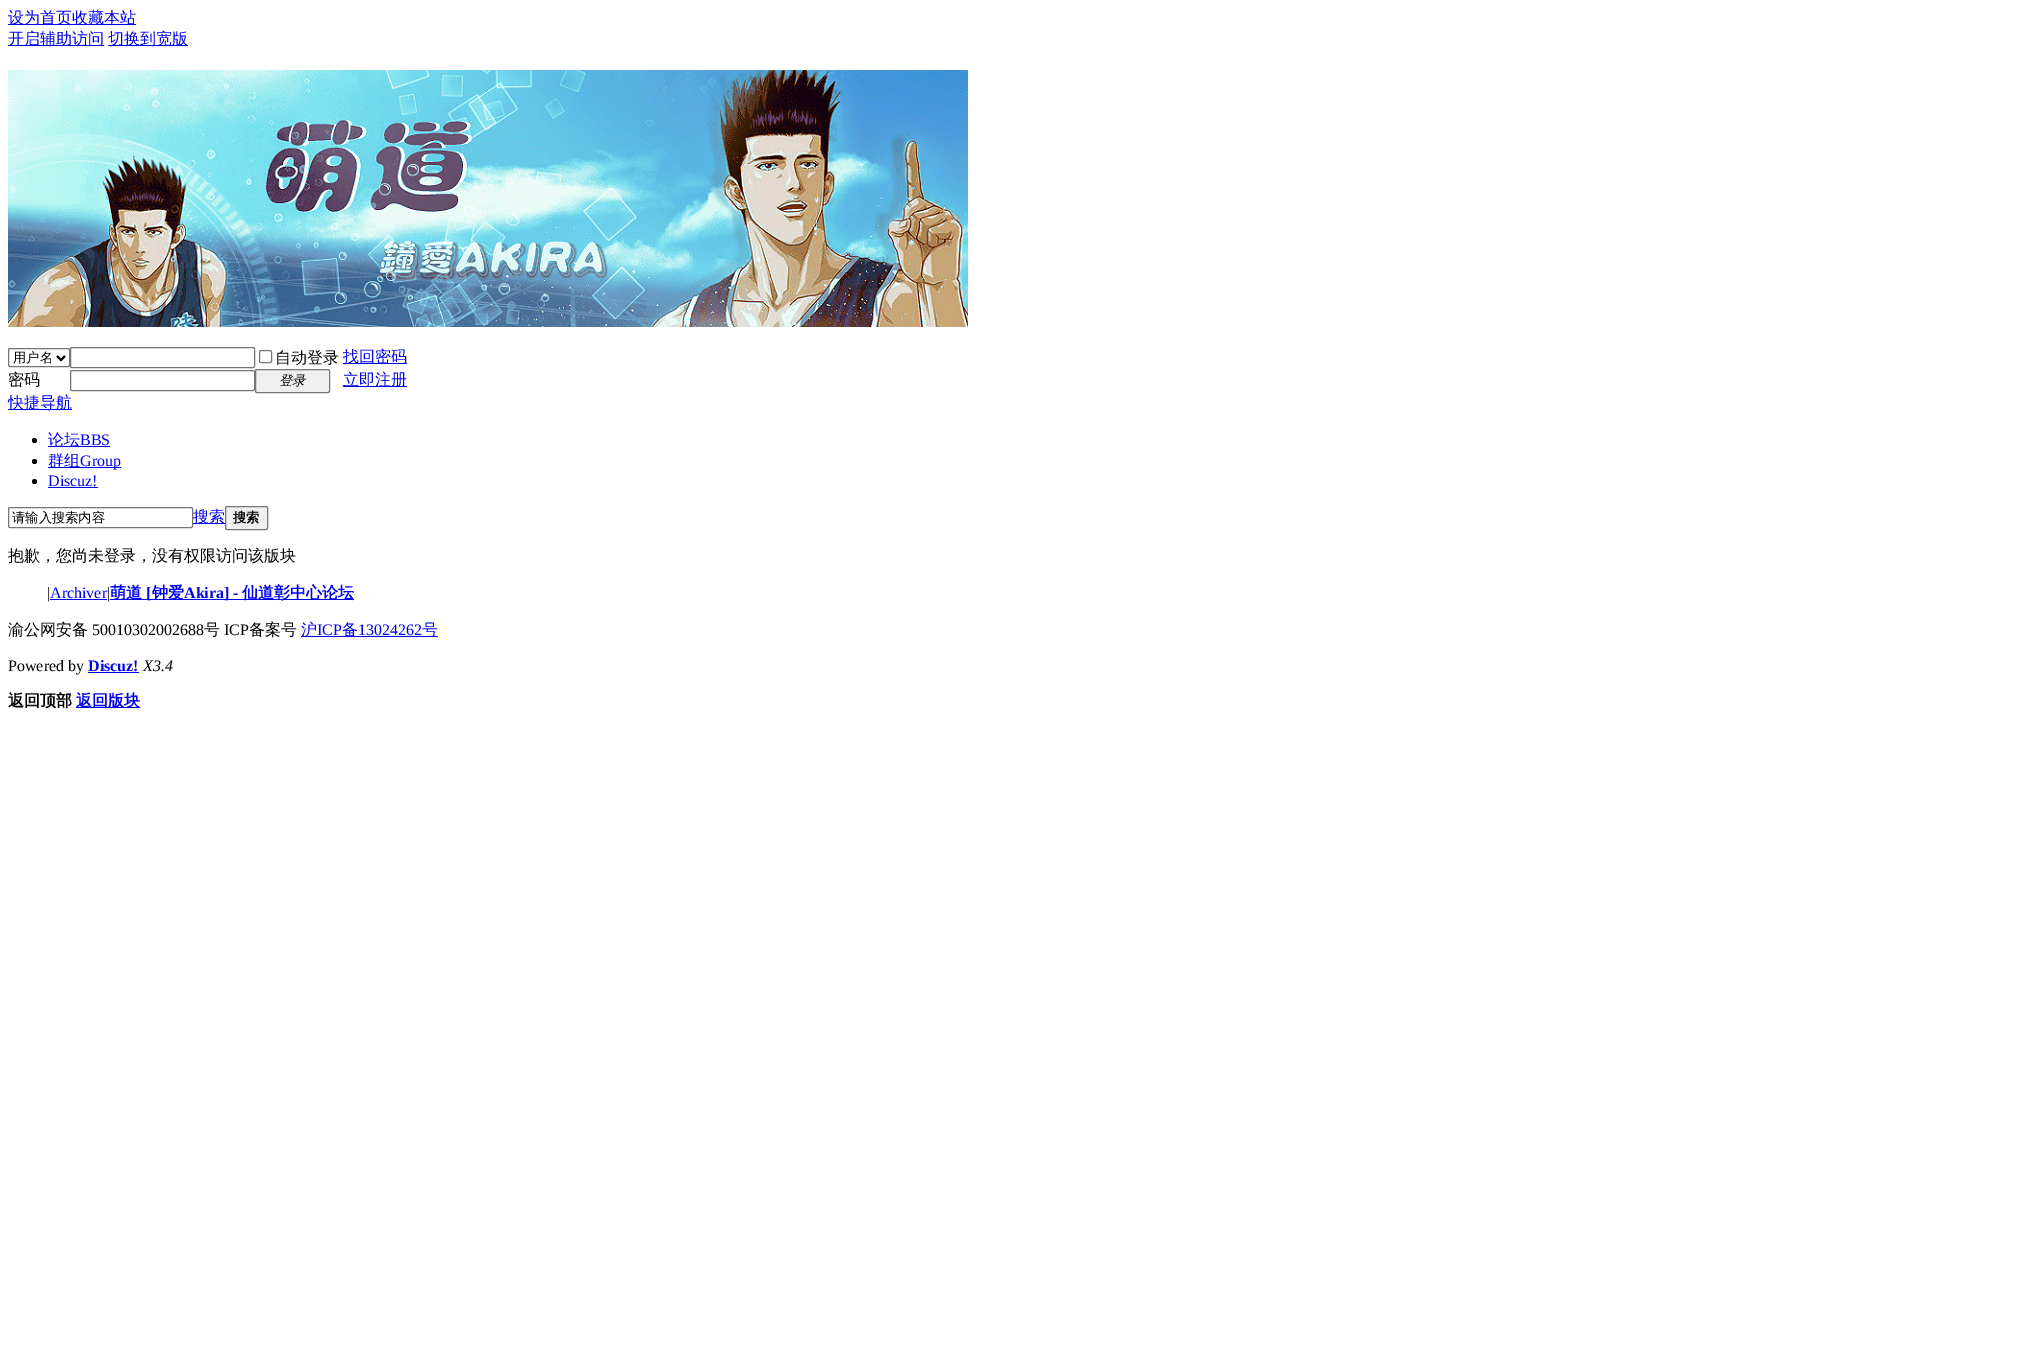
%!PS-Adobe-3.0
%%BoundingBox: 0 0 2027 1360
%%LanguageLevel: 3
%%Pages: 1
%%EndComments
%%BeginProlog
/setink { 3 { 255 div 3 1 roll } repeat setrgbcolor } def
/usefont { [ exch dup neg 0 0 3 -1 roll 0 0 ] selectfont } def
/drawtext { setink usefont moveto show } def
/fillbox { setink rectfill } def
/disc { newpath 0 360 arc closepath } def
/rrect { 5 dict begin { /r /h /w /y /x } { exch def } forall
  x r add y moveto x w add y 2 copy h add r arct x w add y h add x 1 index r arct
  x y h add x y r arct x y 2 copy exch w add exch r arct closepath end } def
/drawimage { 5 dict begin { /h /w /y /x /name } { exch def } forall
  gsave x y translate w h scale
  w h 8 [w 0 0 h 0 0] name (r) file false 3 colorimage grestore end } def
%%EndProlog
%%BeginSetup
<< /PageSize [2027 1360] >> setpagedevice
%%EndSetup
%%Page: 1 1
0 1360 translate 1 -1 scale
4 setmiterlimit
0 0 2027 1360 255 255 255 fillbox
8 24 128 1 0 0 238 fillbox
(设为首页收藏本站) 8 23 /WenQuanYiZenHei-Medium 16 0 0 238 drawtext
8 45 96 1 0 0 238 fillbox
(开启辅助访问) 8 44 /WenQuanYiZenHei-Medium 16 0 0 238 drawtext
108 45 80 1 0 0 238 fillbox
(切换到宽版) 108 44 /WenQuanYiZenHei-Medium 16 0 0 238 drawtext
(assets/img1.rgb) 8 70 960 257 drawimage
118 118 118 setink
8.5 348.5 61 18 1.5 rrect stroke
0 0 0 setink
2 setlinewidth
57 356 moveto 61 360 lineto 65 356 lineto stroke
(用户名) 13 362 /WenQuanYiZenHei-Medium 13.25 0 0 0 drawtext
118 118 118 setink
1 setlinewidth
70.5 347.5 184 20 1.5 rrect stroke
259.5 350.5 12 12 1.5 rrect stroke
(自动登录) 275 363 /WenQuanYiZenHei-Medium 16 0 0 0 drawtext
343 363 64 1 0 0 238 fillbox
(找回密码) 343 362 /WenQuanYiZenHei-Medium 16 0 0 238 drawtext
(密码) 8 385 /WenQuanYiZenHei-Medium 16 0 0 0 drawtext
118 118 118 setink
70.5 370.5 184 20 1.5 rrect stroke
239 239 239 setink
255.5 369.5 74 23 1.5 rrect gsave fill grestore
118 118 118 setink
stroke
(登录) 279 385 /WenQuanYiZenHei-MediumItalic 13.25 0 0 0 drawtext
343 386 64 1 0 0 238 fillbox
(立即注册) 343 385 /WenQuanYiZenHei-Medium 16 0 0 238 drawtext
8 409 64 1 0 0 238 fillbox
(快捷导航) 8 408 /WenQuanYiZenHei-Medium 16 0 0 238 drawtext
0 0 0 setink
34.5 440.5 2.5 disc fill
48 446 62 1 0 0 238 fillbox
(论坛) 48 445 /WenQuanYiZenHei-Medium 16 0 0 238 drawtext
(BBS) 80 445 /LiberationSerif-Regular 16 0 0 238 drawtext
0 0 0 setink
34.5 461.5 2.5 disc fill
48 467 73 1 0 0 238 fillbox
(群组) 48 466 /WenQuanYiZenHei-Medium 16 0 0 238 drawtext
(Group) 80 466 /LiberationSerif-Regular 16 0 0 238 drawtext
0 0 0 setink
34.5 481.5 2.5 disc fill
(Discuz!) 48 486 /LiberationSerif-Regular 16 0 0 238 drawtext
48 487 50 1 0 0 238 fillbox
118 118 118 setink
8.5 507.5 184 20 1.5 rrect stroke
(请输入搜索内容) 12 522 /WenQuanYiZenHei-Medium 13.25 0 0 0 drawtext
193 523 32 1 0 0 238 fillbox
(搜索) 193 522 /WenQuanYiZenHei-Medium 16 0 0 238 drawtext
239 239 239 setink
225.5 506.5 42 23 1.5 rrect gsave fill grestore
118 118 118 setink
stroke
(搜索) 233 522 /WenQuanYiZenHei-Bold 13.25 0 0 0 drawtext
(抱歉，您尚未登录，没有权限访问该版块) 8 561 /WenQuanYiZenHei-Medium 16 0 0 0 drawtext
(|) 47 598 /LiberationSerif-Regular 16 0 0 0 drawtext
(Archiver) 50 598 /LiberationSerif-Regular 16 0 0 238 drawtext
50 599 57 1 0 0 238 fillbox
(|) 107 598 /LiberationSerif-Regular 16 0 0 0 drawtext
110 599 244 1 0 0 238 fillbox
(萌道) 110 598 /WenQuanYiZenHei-Bold 16 0 0 238 drawtext
([) 146 598 /LiberationSerif-Bold 16 0 0 238 drawtext
(钟爱) 152 598 /WenQuanYiZenHei-Bold 16 0 0 238 drawtext
(Akira] -) 184 598 /LiberationSerif-Bold 16 0 0 238 drawtext
(仙道彰中心论坛) 242 598 /WenQuanYiZenHei-Bold 16 0 0 238 drawtext
(渝公网安备) 8 635 /WenQuanYiZenHei-Medium 16 0 0 0 drawtext
(50010302002688) 92 635 /LiberationSerif-Regular 16 0 0 0 drawtext
(号) 204 635 /WenQuanYiZenHei-Medium 16 0 0 0 drawtext
(ICP) 224 635 /LiberationSerif-Regular 16 0 0 0 drawtext
(备案号) 249 635 /WenQuanYiZenHei-Medium 16 0 0 0 drawtext
301 636 137 1 0 0 238 fillbox
(沪) 301 635 /WenQuanYiZenHei-Medium 16 0 0 238 drawtext
(ICP) 317 635 /LiberationSerif-Regular 16 0 0 238 drawtext
(备) 342 635 /WenQuanYiZenHei-Medium 16 0 0 238 drawtext
(13024262) 358 635 /LiberationSerif-Regular 16 0 0 238 drawtext
(号) 422 635 /WenQuanYiZenHei-Medium 16 0 0 238 drawtext
(Powered by) 8 671 /LiberationSerif-Regular 16 0 0 0 drawtext
(Discuz!) 88 671 /LiberationSerif-Bold 16 0 0 238 drawtext
88 672 51 1 0 0 238 fillbox
(X3.4) 143 671 /LiberationSerif-Italic 16 0 0 0 drawtext
(返回顶部) 8 706 /WenQuanYiZenHei-Bold 16 0 0 0 drawtext
76 707 64 1 0 0 238 fillbox
(返回版块) 76 706 /WenQuanYiZenHei-Bold 16 0 0 238 drawtext
showpage
%%EOF
